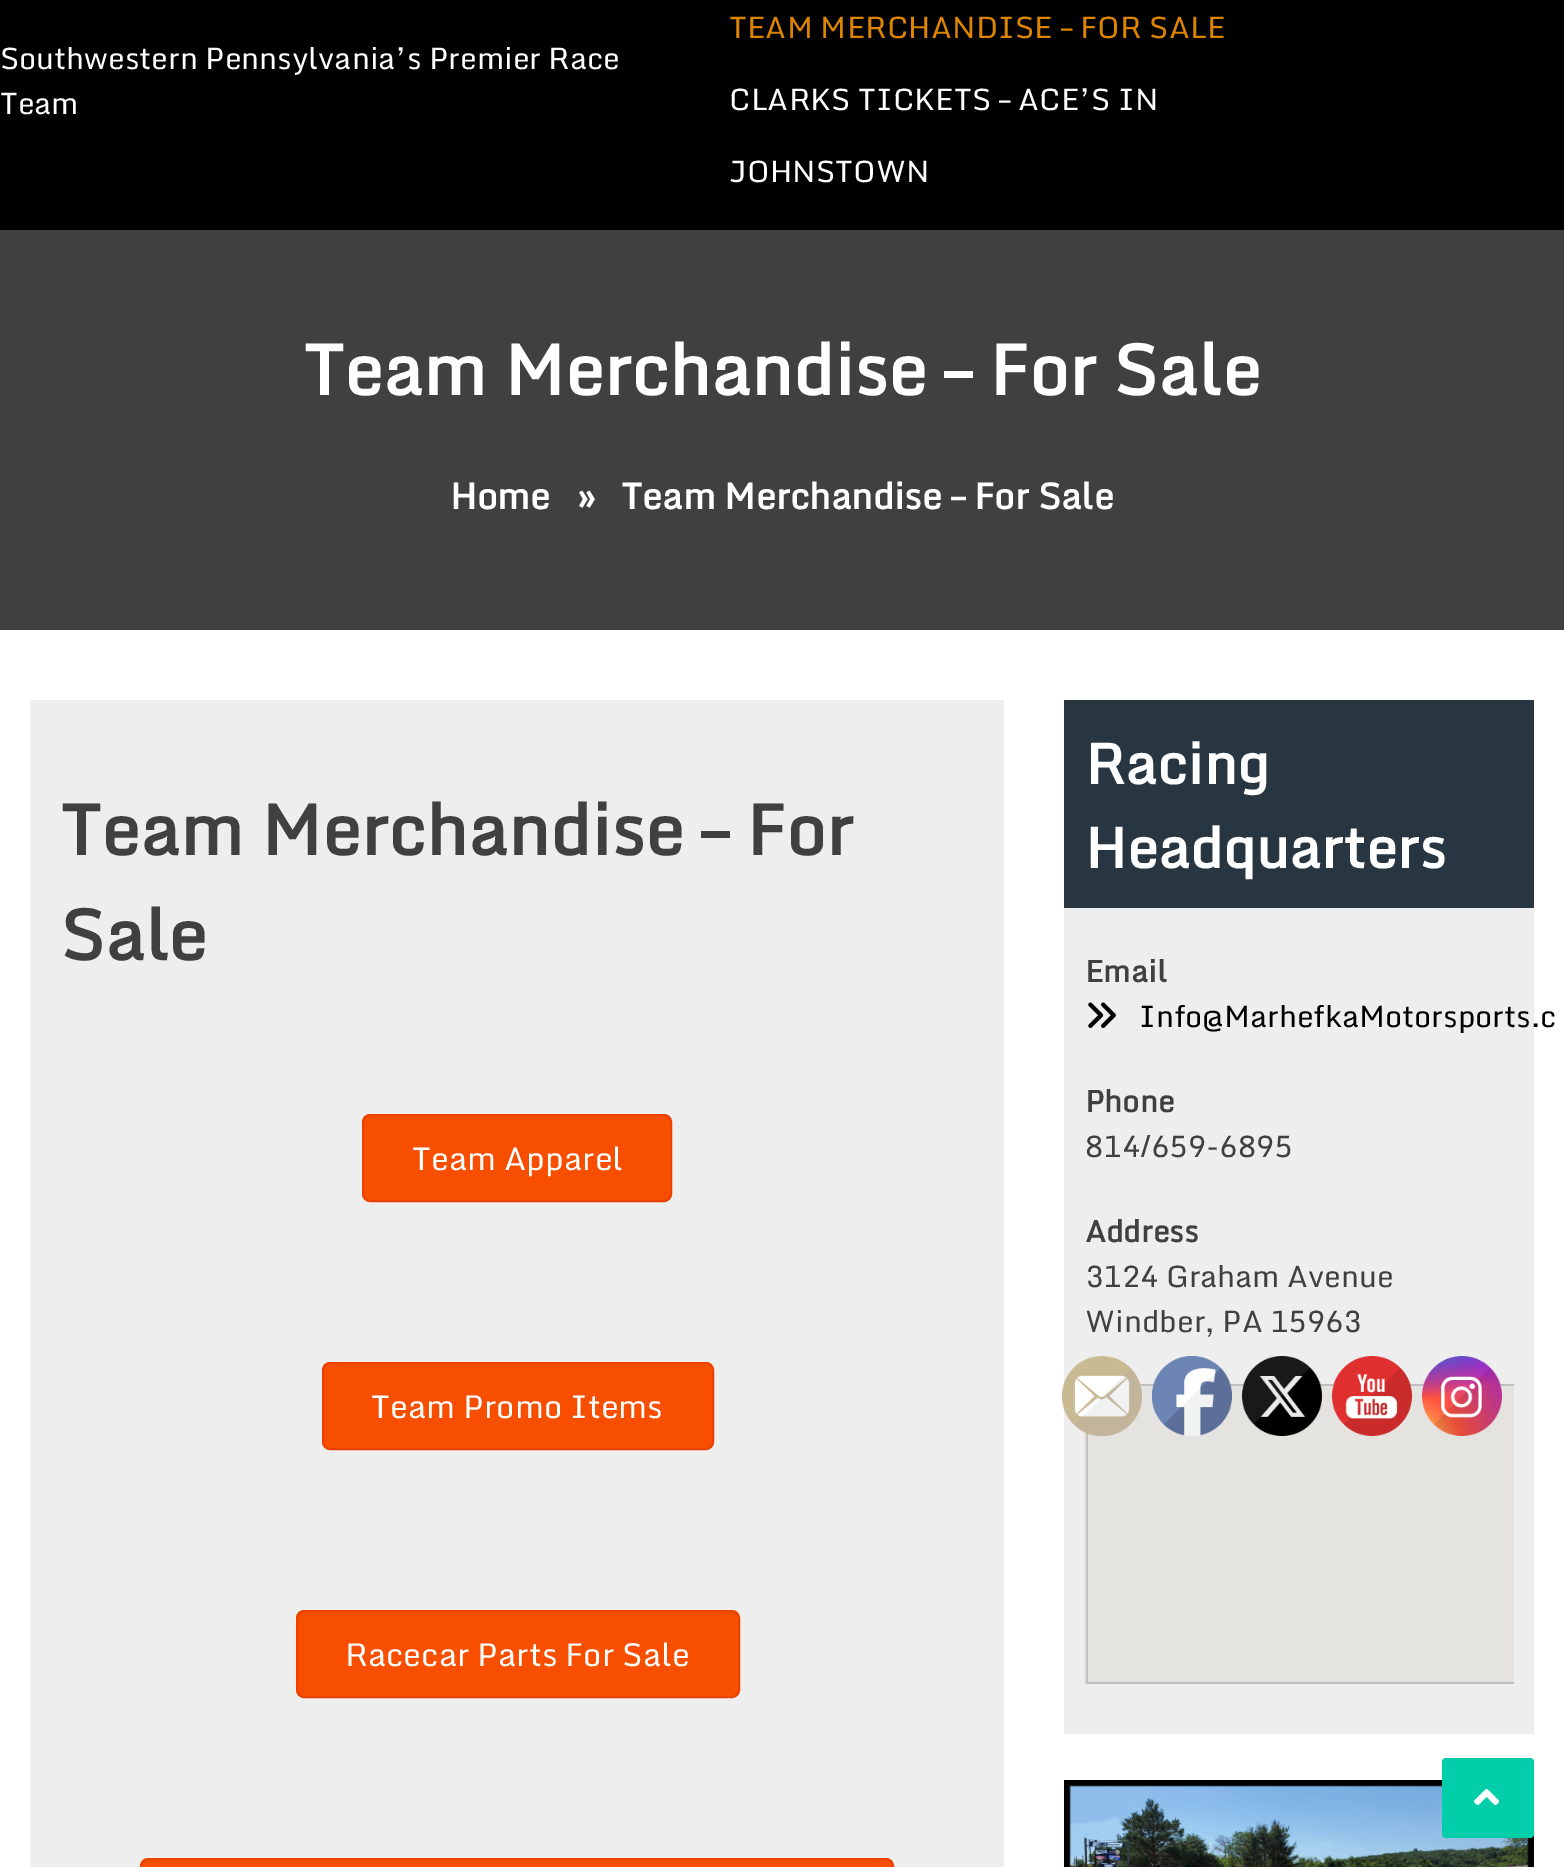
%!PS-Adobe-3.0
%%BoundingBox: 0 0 1564 1867
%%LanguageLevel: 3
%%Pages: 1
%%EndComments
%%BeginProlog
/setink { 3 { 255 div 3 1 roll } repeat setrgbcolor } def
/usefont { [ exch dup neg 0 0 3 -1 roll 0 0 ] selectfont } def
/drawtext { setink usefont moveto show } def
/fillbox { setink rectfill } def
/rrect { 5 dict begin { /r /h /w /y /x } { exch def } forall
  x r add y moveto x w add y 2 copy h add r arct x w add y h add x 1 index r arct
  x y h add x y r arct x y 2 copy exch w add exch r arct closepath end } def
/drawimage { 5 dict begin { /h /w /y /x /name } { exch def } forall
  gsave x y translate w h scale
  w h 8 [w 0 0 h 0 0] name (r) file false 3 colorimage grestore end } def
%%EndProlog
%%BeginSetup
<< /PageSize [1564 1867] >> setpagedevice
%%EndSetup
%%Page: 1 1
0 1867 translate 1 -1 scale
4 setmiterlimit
0 0 1564 1867 255 255 255 fillbox
0 0 1564 230 0 0 0 fillbox
(Southwestern Pennsylvania’s Premier Race) 0 69 /Monda-Regular 30 255 255 255 drawtext
(Team) 0 114 /Monda-Regular 30 255 255 255 drawtext
221 133 0 setink
729 38 moveto 0.2 0 (TEAM MERCHANDISE – FOR SALE) ashow
255 255 255 setink
729 110 moveto 0.2 0 (CLARKS TICKETS – ACE’S IN) ashow
729 182 moveto 0.2 0 (JOHNSTOWN) ashow
0 230 1564 400 64 64 64 fillbox
(Team Merchandise – For Sale) 303 395 /Monda-Bold 70 255 255 255 drawtext
(Home) 450 509 /Monda-Bold 36 255 255 255 drawtext
(») 577 509 /Monda-Bold 36 255 255 255 drawtext
(Team Merchandise – For Sale) 621 509 /Monda-Bold 36 255 255 255 drawtext
30 700 974 1167 238 238 238 fillbox
(Team Merchandise – For) 60 855 /Monda-Bold 70 64 64 64 drawtext
(Sale) 60 960 /Monda-Bold 70 64 64 64 drawtext
247 78 0 setink
363 1115 308 86 7 rrect gsave fill grestore
235 66 0 setink
2 setlinewidth
stroke
(Team Apparel) 412 1170 /Monda-Regular 32 255 255 255 drawtext
247 78 0 setink
323 1363 390 86 7 rrect gsave fill grestore
235 66 0 setink
stroke
(Team Promo Items) 371 1418 /Monda-Regular 32 255 255 255 drawtext
247 78 0 setink
297 1611 442 86 7 rrect gsave fill grestore
235 66 0 setink
stroke
(Racecar Parts For Sale) 345 1666 /Monda-Regular 32 255 255 255 drawtext
247 78 0 setink
141 1859 752 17 7 rrect gsave fill grestore
235 66 0 setink
stroke
1064 908 470 826 238 238 238 fillbox
1064 700 470 208 39 54 65 fillbox
(Racing) 1085 784 /Monda-Bold 56 255 255 255 drawtext
(Headquarters) 1085 868 /Monda-Bold 56 255 255 255 drawtext
(Email) 1085 982 /Monda-Bold 30 64 64 64 drawtext
(assets/img1.rgb) 1088 1002 28 26 drawimage
(Info@MarhefkaMotorsports.c) 1139 1027 /Monda-Regular 30 0 0 0 drawtext
(Phone) 1085 1112 /Monda-Bold 30 64 64 64 drawtext
(814/659-6895) 1085 1157 /Monda-Regular 30 64 64 64 drawtext
(Address) 1085 1242 /Monda-Bold 30 64 64 64 drawtext
(3124 Graham Avenue) 1085 1287 /Monda-Regular 30 64 64 64 drawtext
(Windber, PA 15963) 1085 1332 /Monda-Regular 30 64 64 64 drawtext
(assets/img2.rgb) 1084 1384 430 300 drawimage
(assets/img3.rgb) 1064 1780 470 87 drawimage
(assets/img4.rgb) 1062 1356 80 80 drawimage
(assets/img5.rgb) 1152 1356 80 80 drawimage
(assets/img6.rgb) 1242 1356 80 80 drawimage
(assets/img7.rgb) 1332 1356 80 80 drawimage
(assets/img8.rgb) 1422 1356 80 80 drawimage
2 207 170 setink
1442 1758 92 80 4 rrect fill
(assets/img9.rgb) 1474 1789 26 16 drawimage
showpage
%%EOF
